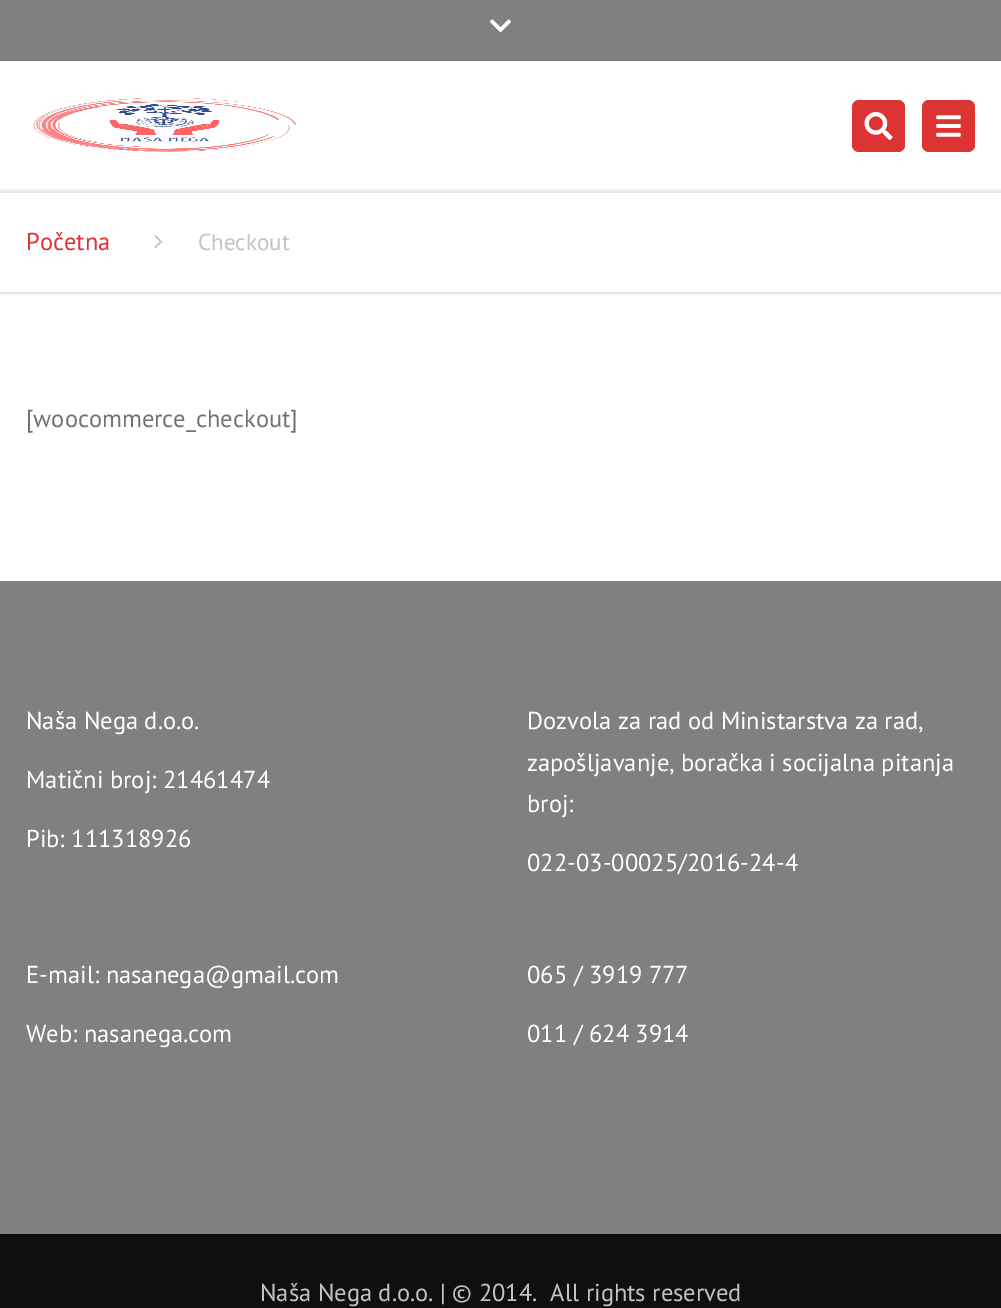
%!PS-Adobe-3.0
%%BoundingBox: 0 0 1001 1308
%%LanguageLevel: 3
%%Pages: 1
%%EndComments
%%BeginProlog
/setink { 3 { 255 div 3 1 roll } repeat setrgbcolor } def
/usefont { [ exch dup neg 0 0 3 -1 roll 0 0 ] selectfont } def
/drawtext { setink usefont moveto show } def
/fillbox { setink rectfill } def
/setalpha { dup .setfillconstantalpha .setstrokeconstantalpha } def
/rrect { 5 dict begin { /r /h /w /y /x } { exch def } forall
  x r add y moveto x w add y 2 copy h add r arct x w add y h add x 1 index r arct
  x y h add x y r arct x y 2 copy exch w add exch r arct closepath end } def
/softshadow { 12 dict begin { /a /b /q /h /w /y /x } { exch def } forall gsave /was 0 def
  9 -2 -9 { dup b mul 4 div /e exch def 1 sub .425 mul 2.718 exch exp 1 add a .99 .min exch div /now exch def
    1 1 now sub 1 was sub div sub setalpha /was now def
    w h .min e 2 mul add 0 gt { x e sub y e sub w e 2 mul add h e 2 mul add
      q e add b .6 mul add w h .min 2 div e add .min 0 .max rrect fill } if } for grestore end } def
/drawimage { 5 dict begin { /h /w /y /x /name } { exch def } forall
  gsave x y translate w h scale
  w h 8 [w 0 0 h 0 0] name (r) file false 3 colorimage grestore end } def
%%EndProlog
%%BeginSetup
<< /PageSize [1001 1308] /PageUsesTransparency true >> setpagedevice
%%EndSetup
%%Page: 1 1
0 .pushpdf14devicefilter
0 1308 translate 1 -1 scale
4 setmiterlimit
0 0 1001 1308 255 255 255 fillbox
0 0 1001 60 128 128 128 fillbox
0 60 1001 1 122 122 122 fillbox
(assets/img1.rgb) 490 19 21 14 drawimage
gsave
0 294 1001 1 rectclip
0 0 0 setink
-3 191 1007 103 0 1 0.14 softshadow
grestore
0 189 1001 2 242 242 242 fillbox
(assets/img2.rgb) 33 98 263 54 drawimage
221 51 51 setink
852 100 53 52 7 rrect fill
(assets/img3.rgb) 864 112 29 28 drawimage
922 100 53 52 7 rrect fill
(assets/img4.rgb) 936 115 25 22 drawimage
0 191 1001 2 231 231 231 fillbox
0 292 1001 2 231 231 231 fillbox
(Početna) 26 250 /PTSans-Regular 24.5 221 51 51 drawtext
(assets/img5.rgb) 154 235 8 14 drawimage
(Checkout) 198 250 /PTSans-Regular 23 195 195 195 drawtext
([woocommerce_checkout]) 26 427 /PTSans-Regular 24.5 114 114 114 drawtext
0 581 1001 653 128 128 128 fillbox
(Naša Nega d.o.o.) 26 729 /PTSans-Regular 24.5 255 255 255 drawtext
(Matični broj: 21461474) 26 788 /PTSans-Regular 24.5 255 255 255 drawtext
(Pib: 111318926) 26 847 /PTSans-Regular 24.5 255 255 255 drawtext
(Dozvola za rad od Ministarstva za rad,) 527 729 /PTSans-Regular 24.5 255 255 255 drawtext
(zapošljavanje, boračka i socijalna pitanja) 527 771 /PTSans-Regular 24.5 255 255 255 drawtext
(broj:) 527 812 /PTSans-Regular 24.5 255 255 255 drawtext
(022-03-00025/2016-24-4) 527 871 /PTSans-Regular 24.5 255 255 255 drawtext
(E-mail: nasanega@gmail.com) 26 983 /PTSans-Regular 24.5 255 255 255 drawtext
(Web: nasanega.com) 26 1042 /PTSans-Regular 24.5 255 255 255 drawtext
(065 / 3919 777) 527 983 /PTSans-Regular 24.5 255 255 255 drawtext
(011 / 624 3914) 527 1042 /PTSans-Regular 24.5 255 255 255 drawtext
0 1234 1001 74 15 15 15 fillbox
(Naša Nega d.o.o. | © 2014.  All rights reserved) 260 1301 /PTSans-Regular 24.5 195 195 195 drawtext
.poppdf14devicefilter showpage
%%EOF
